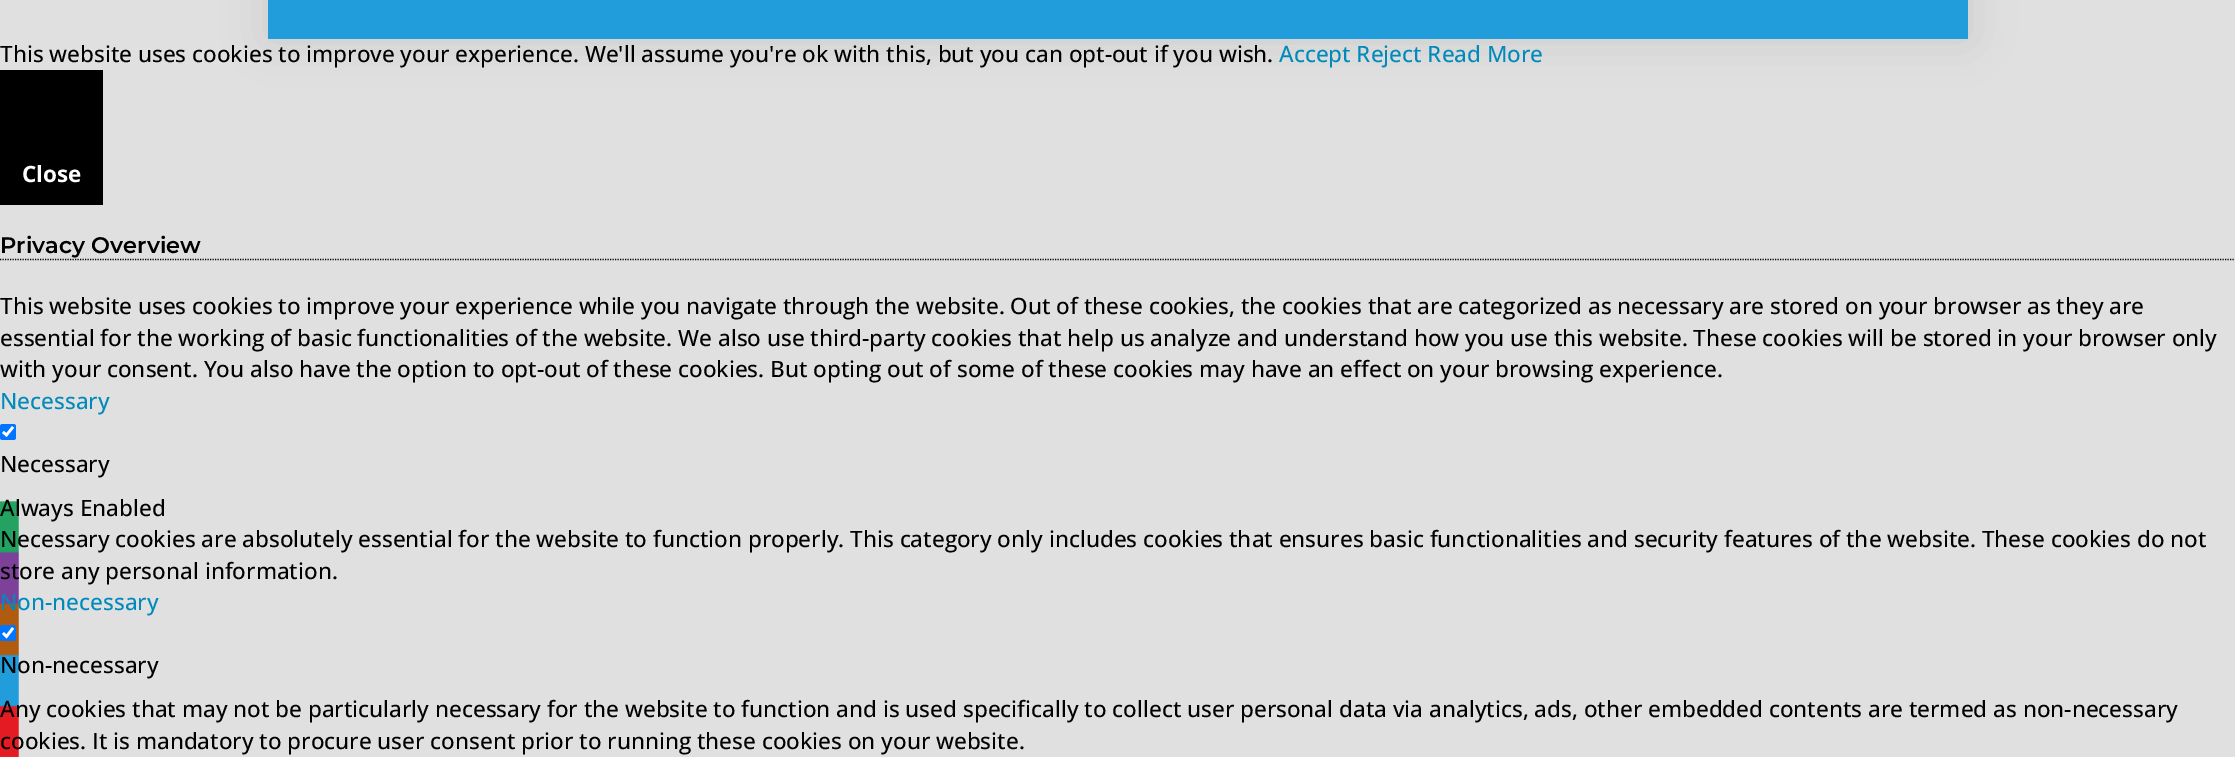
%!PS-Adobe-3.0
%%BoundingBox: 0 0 2235 757
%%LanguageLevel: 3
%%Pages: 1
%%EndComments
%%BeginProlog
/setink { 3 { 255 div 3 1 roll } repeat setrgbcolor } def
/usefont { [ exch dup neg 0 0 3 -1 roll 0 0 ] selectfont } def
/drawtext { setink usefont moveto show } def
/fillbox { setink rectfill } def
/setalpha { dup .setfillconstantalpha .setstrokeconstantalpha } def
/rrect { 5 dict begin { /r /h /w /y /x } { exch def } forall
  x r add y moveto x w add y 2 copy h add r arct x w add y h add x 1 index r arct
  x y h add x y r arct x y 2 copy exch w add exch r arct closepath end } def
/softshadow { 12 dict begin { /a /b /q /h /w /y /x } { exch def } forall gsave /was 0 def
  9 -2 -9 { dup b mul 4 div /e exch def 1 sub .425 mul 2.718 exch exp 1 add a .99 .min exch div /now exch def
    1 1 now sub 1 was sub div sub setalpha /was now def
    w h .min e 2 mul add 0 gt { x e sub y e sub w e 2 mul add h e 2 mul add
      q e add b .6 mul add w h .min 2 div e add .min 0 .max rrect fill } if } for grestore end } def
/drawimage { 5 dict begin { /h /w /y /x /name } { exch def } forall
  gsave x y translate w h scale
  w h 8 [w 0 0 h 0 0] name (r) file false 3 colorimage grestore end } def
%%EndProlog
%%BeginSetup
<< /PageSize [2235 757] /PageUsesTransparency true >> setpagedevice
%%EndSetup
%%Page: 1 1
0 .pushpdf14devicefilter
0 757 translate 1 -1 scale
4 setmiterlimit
0 0 2235 757 224 224 224 fillbox
(assets/img1.rgb) 0 501 19 256 drawimage
0 0 0 setink
268 -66 1700 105 0 22 0.1 softshadow
268 0 1700 39 34 157 220 fillbox
(This website uses cookies to improve your experience. We'll assume you're ok with this, but you can opt-out if you wish.) 0 62 /OpenSans-Medium 22.5 0 0 0 drawtext
(Accept Reject Read More) 1279 62 /OpenSans-Medium 22.5 0 138 187 drawtext
0 70 103 135 0 0 0 fillbox
(Close) 22 182 /OpenSans-Bold 22.5 255 255 255 drawtext
0 0 0 setink
1.2 setlinewidth
[1.25 1.25] 0 setdash
0 259.5 moveto 2235 259.5 lineto stroke
(Privacy Overview) 0 253 /Montserrat-SemiBold 22.5 0 0 0 drawtext
(This website uses cookies to improve your experience while you navigate through the website. Out of these cookies, the cookies that are categorized as necessary are stored on your browser as they are) 0 314 /OpenSans-Medium 22.5 0 0 0 drawtext
(essential for the working of basic functionalities of the website. We also use third-party cookies that help us analyze and understand how you use this website. These cookies will be stored in your browser only) 0 346 /OpenSans-Medium 22.5 0 0 0 drawtext
(with your consent. You also have the option to opt-out of these cookies. But opting out of some of these cookies may have an effect on your browsing experience.) 0 377 /OpenSans-Medium 22.5 0 0 0 drawtext
(Necessary) 0 409 /OpenSans-Medium 22.5 0 138 187 drawtext
0 117 255 setink
0 424 16 16 2.5 rrect fill
255 255 255 setink
2.6 setlinewidth
[] 0 setdash
3 432 moveto 6.5 435 lineto 13 427 lineto stroke
(Necessary) 0 472 /OpenSans-Medium 22.5 0 0 0 drawtext
(Always Enabled) 0 516 /OpenSans-Medium 22.5 0 0 0 drawtext
(Necessary cookies are absolutely essential for the website to function properly. This category only includes cookies that ensures basic functionalities and security features of the website. These cookies do not) 0 547 /OpenSans-Medium 22.5 0 0 0 drawtext
(store any personal information.) 0 579 /OpenSans-Medium 22.5 0 0 0 drawtext
(Non-necessary) 0 610 /OpenSans-Medium 22.5 0 138 187 drawtext
0 117 255 setink
0 625 16 16 2.5 rrect fill
255 255 255 setink
3 633 moveto 6.5 636.5 lineto 13 628 lineto stroke
(Non-necessary) 0 673 /OpenSans-Medium 22.5 0 0 0 drawtext
(Any cookies that may not be particularly necessary for the website to function and is used specifically to collect user personal data via analytics, ads, other embedded contents are termed as non-necessary) 0 717 /OpenSans-Medium 22.5 0 0 0 drawtext
(cookies. It is mandatory to procure user consent prior to running these cookies on your website.) 0 749 /OpenSans-Medium 22.5 0 0 0 drawtext
.poppdf14devicefilter showpage
%%EOF
